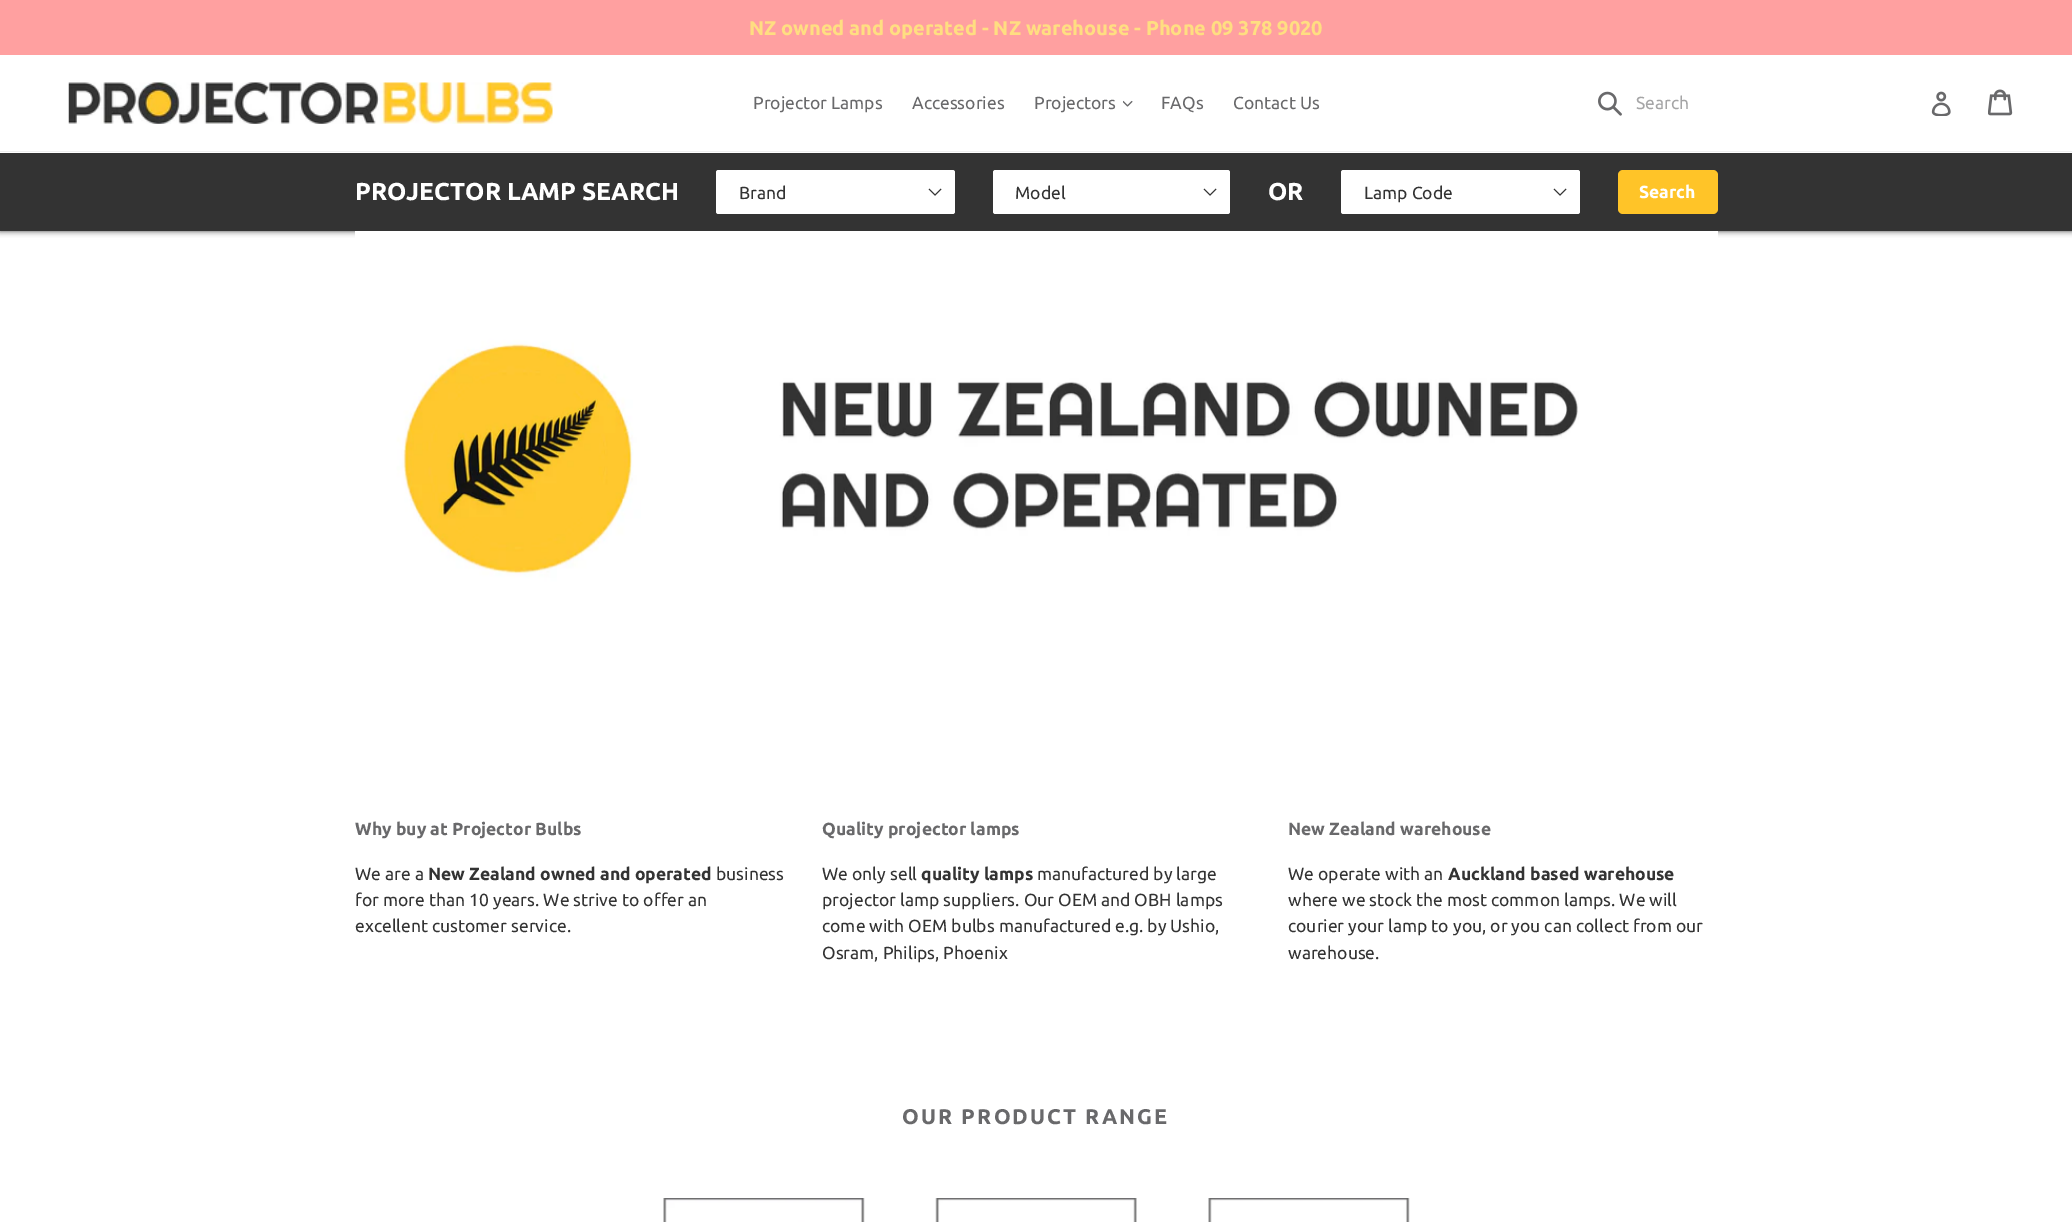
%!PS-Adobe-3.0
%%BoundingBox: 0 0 2072 1222
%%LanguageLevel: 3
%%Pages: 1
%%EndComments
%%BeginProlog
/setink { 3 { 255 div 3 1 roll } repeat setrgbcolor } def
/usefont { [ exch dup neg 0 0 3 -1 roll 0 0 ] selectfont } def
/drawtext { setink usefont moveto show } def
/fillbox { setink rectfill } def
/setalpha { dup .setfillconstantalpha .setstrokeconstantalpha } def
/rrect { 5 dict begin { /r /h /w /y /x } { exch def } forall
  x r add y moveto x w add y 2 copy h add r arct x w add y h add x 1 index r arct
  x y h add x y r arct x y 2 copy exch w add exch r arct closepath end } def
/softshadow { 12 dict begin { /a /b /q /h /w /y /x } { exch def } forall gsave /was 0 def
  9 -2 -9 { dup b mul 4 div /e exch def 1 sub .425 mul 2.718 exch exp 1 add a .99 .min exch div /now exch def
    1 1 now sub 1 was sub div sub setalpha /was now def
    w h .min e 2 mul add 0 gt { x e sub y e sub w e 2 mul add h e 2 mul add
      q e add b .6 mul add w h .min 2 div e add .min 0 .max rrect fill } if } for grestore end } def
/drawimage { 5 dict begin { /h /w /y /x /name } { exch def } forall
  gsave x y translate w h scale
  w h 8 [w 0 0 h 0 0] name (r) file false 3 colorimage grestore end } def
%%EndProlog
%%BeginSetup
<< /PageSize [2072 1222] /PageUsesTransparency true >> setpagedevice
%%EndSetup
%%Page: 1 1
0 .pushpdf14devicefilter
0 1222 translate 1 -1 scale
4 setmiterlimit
0 0 2072 1222 255 255 255 fillbox
0 0 2072 55 255 160 160 fillbox
(NZ owned and operated - NZ warehouse - Phone 09 378 9020) 749 35 /Ubuntu-Bold 20 255 222 129 drawtext
0 0 0 setink
0 153 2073 78 0 3 0.75 softshadow
0 146 2072 7 255 255 255 fillbox
0 151 2072 1 239 239 239 fillbox
(assets/img1.rgb) 68 82 485 42 drawimage
(Projector Lamps) 753 109 /Ubuntu-Regular 17.5 105 105 107 drawtext
(Accessories) 912 109 /Ubuntu-Regular 17.5 105 105 107 drawtext
(Projectors) 1034 109 /Ubuntu-Regular 17.5 105 105 107 drawtext
(assets/img2.rgb) 1123 100 10 7 drawimage
(FAQs) 1161 109 /Ubuntu-Regular 17.5 105 105 107 drawtext
(Contact Us) 1233 109 /Ubuntu-Regular 17.5 105 105 107 drawtext
(assets/img3.rgb) 1598 91 24 25 drawimage
(Search) 1636 109 /Ubuntu-Regular 17.5 165 165 166 drawtext
(assets/img4.rgb) 1931 91 20 25 drawimage
(assets/img5.rgb) 1988 89 25 27 drawimage
0 153 2072 78 51 51 51 fillbox
(PROJECTOR LAMP SEARCH) 355 200 /Ubuntu-Bold 24.5 255 255 255 drawtext
716 170 239 44 2.5 rrect fill
(assets/img6.rgb) 928 188 14 8 drawimage
(Brand) 739 199 /Ubuntu-Regular 17.5 51 51 51 drawtext
255 255 255 setink
993 170 237 44 2.5 rrect fill
(assets/img6.rgb) 1203 188 14 8 drawimage
(Model) 1015 199 /Ubuntu-Regular 17.5 51 51 51 drawtext
(OR) 1268 200 /Ubuntu-Bold 24.5 255 255 255 drawtext
1341 170 239 44 2.5 rrect fill
(assets/img6.rgb) 1553 188 14 8 drawimage
(Lamp Code) 1364 199 /Ubuntu-Regular 17.5 51 51 51 drawtext
255 196 40 setink
1618 170 100 44 5 rrect fill
(Search) 1639 198 /Ubuntu-Bold 17.5 255 255 255 drawtext
(assets/img7.rgb) 355 231 1363 450 drawimage
(Why buy at Projector Bulbs) 355 835 /Ubuntu-Bold 17.5 105 105 107 drawtext
(We are a) 355 880 /Ubuntu-Regular 17.5 51 51 51 drawtext
(New Zealand owned and operated) 428 880 /Ubuntu-Bold 17.5 51 51 51 drawtext
(business) 716 880 /Ubuntu-Regular 17.5 51 51 51 drawtext
(for more than 10 years. We strive to offer an) 355 906 /Ubuntu-Regular 17.5 51 51 51 drawtext
(excellent customer service.) 355 932 /Ubuntu-Regular 17.5 51 51 51 drawtext
(Quality projector lamps) 822 835 /Ubuntu-Bold 17.5 105 105 107 drawtext
(We only sell) 822 880 /Ubuntu-Regular 17.5 51 51 51 drawtext
(quality lamps) 921 880 /Ubuntu-Bold 17.5 51 51 51 drawtext
(manufactured by large) 1037 880 /Ubuntu-Regular 17.5 51 51 51 drawtext
(projector lamp suppliers. Our OEM and OBH lamps) 822 906 /Ubuntu-Regular 17.5 51 51 51 drawtext
(come with OEM bulbs manufactured e.g. by Ushio,) 822 932 /Ubuntu-Regular 17.5 51 51 51 drawtext
(Osram, Philips, Phoenix) 822 959 /Ubuntu-Regular 17.5 51 51 51 drawtext
(New Zealand warehouse) 1288 835 /Ubuntu-Bold 17.5 105 105 107 drawtext
(We operate with an) 1288 880 /Ubuntu-Regular 17.5 51 51 51 drawtext
(Auckland based warehouse) 1448 880 /Ubuntu-Bold 17.5 51 51 51 drawtext
(where we stock the most common lamps. We will) 1288 906 /Ubuntu-Regular 17.5 51 51 51 drawtext
(courier your lamp to you, or you can collect from our) 1288 932 /Ubuntu-Regular 17.5 51 51 51 drawtext
(warehouse.) 1288 959 /Ubuntu-Regular 17.5 51 51 51 drawtext
/Ubuntu-Bold 21.25 usefont
105 105 107 setink
902 1124 moveto 2.1 0 (OUR PRODUCT RANGE) ashow
(assets/img8.rgb) 663 1198 202 24 drawimage
(assets/img9.rgb) 935 1198 202 24 drawimage
(assets/img10.rgb) 1208 1198 202 24 drawimage
.poppdf14devicefilter showpage
%%EOF
